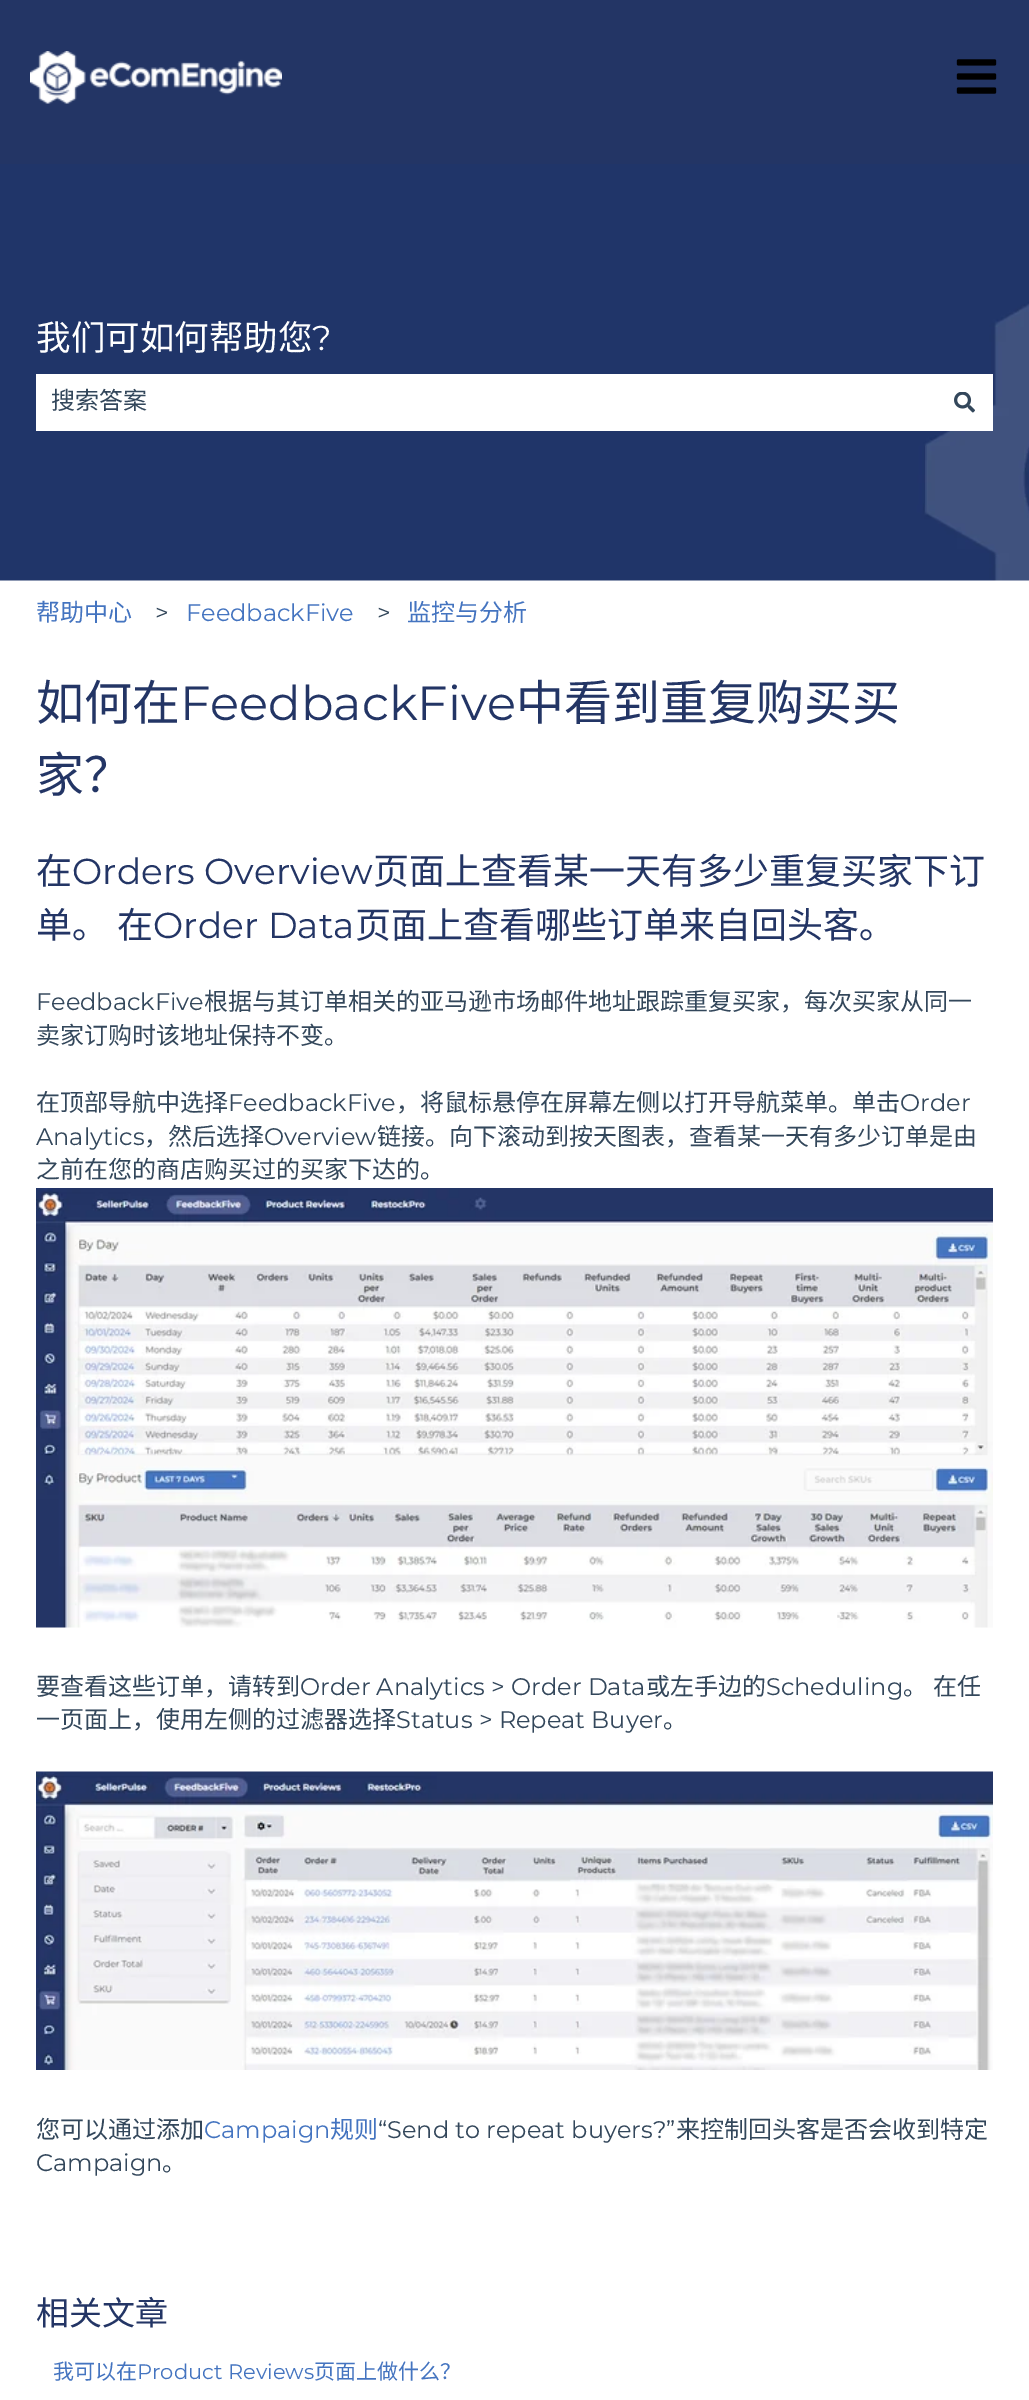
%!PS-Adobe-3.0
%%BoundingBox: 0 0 1029 2400
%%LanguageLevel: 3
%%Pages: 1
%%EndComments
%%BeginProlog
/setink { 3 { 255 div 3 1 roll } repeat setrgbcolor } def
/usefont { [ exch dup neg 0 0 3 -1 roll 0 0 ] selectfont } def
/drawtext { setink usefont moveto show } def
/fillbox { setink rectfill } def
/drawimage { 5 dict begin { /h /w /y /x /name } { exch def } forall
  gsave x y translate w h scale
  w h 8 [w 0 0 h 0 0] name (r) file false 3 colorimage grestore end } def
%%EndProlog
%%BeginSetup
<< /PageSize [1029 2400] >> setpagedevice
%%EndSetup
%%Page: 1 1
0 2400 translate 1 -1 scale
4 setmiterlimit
0 0 1029 2400 255 255 255 fillbox
0 0 1029 164 35 53 101 fillbox
(assets/img1.rgb) 30 51 252 53 drawimage
(assets/img2.rgb) 956 59 41 35 drawimage
(assets/img3.rgb) 0 164 1029 417 drawimage
(我们可如何帮助您) 36 350 /NotoSansCJKSC-Regular 34.5 255 255 255 drawtext
(?) 312 350 /Montserrat-Regular 34.5 255 255 255 drawtext
36 374 957 57 255 255 255 fillbox
(搜索答案) 51 409 /NotoSansCJKSC-Regular 24 51 71 91 drawtext
(assets/img4.rgb) 954 392 21 21 drawimage
(帮助中心) 36 621 /NotoSansCJKSC-Regular 24 68 116 192 drawtext
(>) 155 621 /Montserrat-Regular 24 51 71 91 drawtext
(FeedbackFive) 186 621 /Montserrat-Regular 24 68 116 192 drawtext
(>) 377 621 /Montserrat-Regular 24 51 71 91 drawtext
(监控与分析) 407 621 /NotoSansCJKSC-Regular 24 68 116 192 drawtext
(如何在) 36 720 /NotoSansCJKSC-Regular 48 35 53 101 drawtext
(FeedbackFive) 180 720 /Montserrat-Regular 48 35 53 101 drawtext
(中看到重复购买买) 516 720 /NotoSansCJKSC-Regular 48 35 53 101 drawtext
(家？) 36 792 /NotoSansCJKSC-Regular 48 35 53 101 drawtext
(在) 36 884 /NotoSansCJKSC-Regular 36 35 53 101 drawtext
(Orders Overview) 72 884 /Montserrat-Regular 36 35 53 101 drawtext
(页面上查看某一天有多少重复买家下订) 373 884 /NotoSansCJKSC-Regular 36 35 53 101 drawtext
(单。) 36 938 /NotoSansCJKSC-Regular 36 35 53 101 drawtext
(在) 117 938 /NotoSansCJKSC-Regular 36 35 53 101 drawtext
(Order Data) 153 938 /Montserrat-Regular 36 35 53 101 drawtext
(页面上查看哪些订单来自回头客。) 355 938 /NotoSansCJKSC-Regular 36 35 53 101 drawtext
(FeedbackFive) 36 1010 /Montserrat-Regular 24 51 71 91 drawtext
(根据与其订单相关的亚马逊市场邮件地址跟踪重复买家，每次买家从同一) 204 1010 /NotoSansCJKSC-Regular 24 51 71 91 drawtext
(卖家订购时该地址保持不变。) 36 1044 /NotoSansCJKSC-Regular 24 51 71 91 drawtext
(在顶部导航中选择) 36 1111 /NotoSansCJKSC-Regular 24 51 71 91 drawtext
(FeedbackFive) 228 1111 /Montserrat-Regular 24 51 71 91 drawtext
(，将鼠标悬停在屏幕左侧以打开导航菜单。单击) 396 1111 /NotoSansCJKSC-Regular 24 51 71 91 drawtext
(Order) 900 1111 /Montserrat-Regular 24 51 71 91 drawtext
(Analytics) 36 1145 /Montserrat-Regular 24 51 71 91 drawtext
(，然后选择) 144 1145 /NotoSansCJKSC-Regular 24 51 71 91 drawtext
(Overview) 264 1145 /Montserrat-Regular 24 51 71 91 drawtext
(链接。向下滚动到按天图表，查看某一天有多少订单是由) 377 1145 /NotoSansCJKSC-Regular 24 51 71 91 drawtext
(之前在您的商店购买过的买家下达的。) 36 1178 /NotoSansCJKSC-Regular 24 51 71 91 drawtext
(assets/img5.rgb) 36 1188 957 440 drawimage
(要查看这些订单，请转到) 36 1695 /NotoSansCJKSC-Regular 24 51 71 91 drawtext
(Order Analytics > Order Data) 300 1695 /Montserrat-Regular 24 51 71 91 drawtext
(或左手边的) 646 1695 /NotoSansCJKSC-Regular 24 51 71 91 drawtext
(Scheduling) 766 1695 /Montserrat-Regular 24 51 71 91 drawtext
(。) 903 1695 /NotoSansCJKSC-Regular 24 51 71 91 drawtext
(在任) 933 1695 /NotoSansCJKSC-Regular 24 51 71 91 drawtext
(一页面上，使用左侧的过滤器选择) 36 1728 /NotoSansCJKSC-Regular 24 51 71 91 drawtext
(Status > Repeat Buyer) 396 1728 /Montserrat-Regular 24 51 71 91 drawtext
(。) 663 1728 /NotoSansCJKSC-Regular 24 51 71 91 drawtext
(assets/img6.rgb) 36 1771 957 299 drawimage
(您可以通过添加) 36 2138 /NotoSansCJKSC-Regular 24 51 71 91 drawtext
(Campaign) 204 2138 /Montserrat-Regular 24 68 116 192 drawtext
(规则) 330 2138 /NotoSansCJKSC-Regular 24 68 116 192 drawtext
(“Send to repeat buyers?”) 378 2138 /Montserrat-Regular 24 51 71 91 drawtext
(来控制回头客是否会收到特定) 676 2138 /NotoSansCJKSC-Regular 24 51 71 91 drawtext
(Campaign) 36 2171 /Montserrat-Regular 24 51 71 91 drawtext
(。) 162 2171 /NotoSansCJKSC-Regular 24 51 71 91 drawtext
(相关文章) 36 2325 /NotoSansCJKSC-Regular 33 35 53 101 drawtext
(我可以在) 53 2379 /NotoSansCJKSC-Regular 21 68 116 192 drawtext
(Product Reviews) 137 2379 /Montserrat-Regular 21 68 116 192 drawtext
(页面上做什么？) 314 2379 /NotoSansCJKSC-Regular 21 68 116 192 drawtext
showpage
%%EOF
